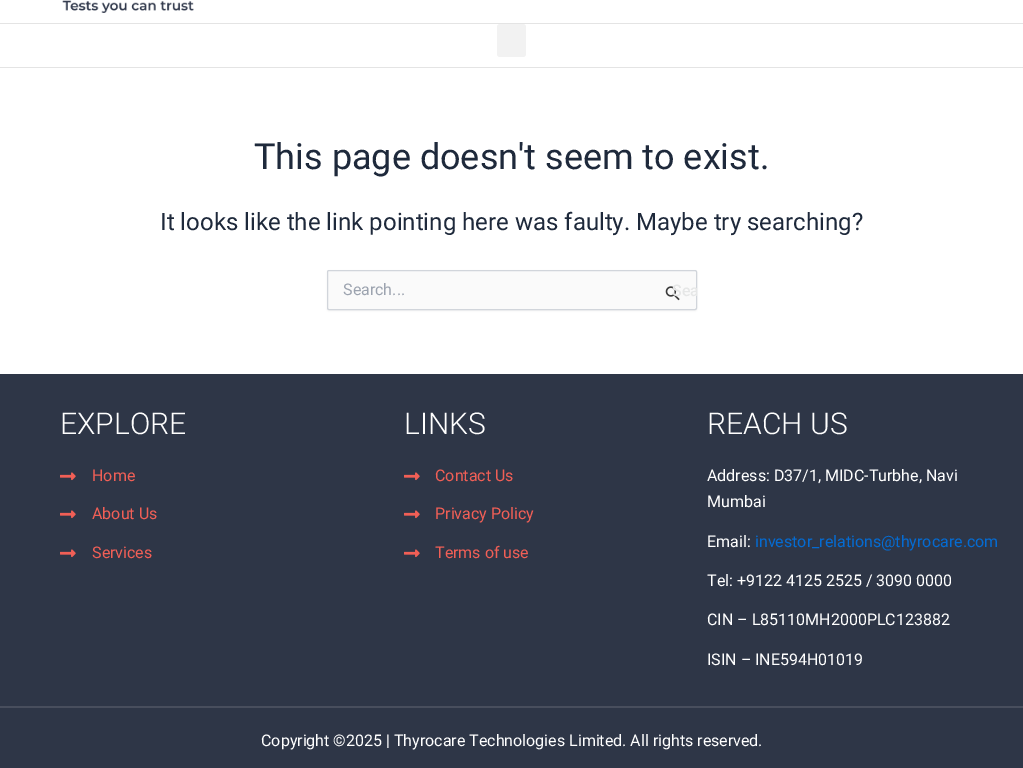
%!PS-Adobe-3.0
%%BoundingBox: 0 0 1023 768
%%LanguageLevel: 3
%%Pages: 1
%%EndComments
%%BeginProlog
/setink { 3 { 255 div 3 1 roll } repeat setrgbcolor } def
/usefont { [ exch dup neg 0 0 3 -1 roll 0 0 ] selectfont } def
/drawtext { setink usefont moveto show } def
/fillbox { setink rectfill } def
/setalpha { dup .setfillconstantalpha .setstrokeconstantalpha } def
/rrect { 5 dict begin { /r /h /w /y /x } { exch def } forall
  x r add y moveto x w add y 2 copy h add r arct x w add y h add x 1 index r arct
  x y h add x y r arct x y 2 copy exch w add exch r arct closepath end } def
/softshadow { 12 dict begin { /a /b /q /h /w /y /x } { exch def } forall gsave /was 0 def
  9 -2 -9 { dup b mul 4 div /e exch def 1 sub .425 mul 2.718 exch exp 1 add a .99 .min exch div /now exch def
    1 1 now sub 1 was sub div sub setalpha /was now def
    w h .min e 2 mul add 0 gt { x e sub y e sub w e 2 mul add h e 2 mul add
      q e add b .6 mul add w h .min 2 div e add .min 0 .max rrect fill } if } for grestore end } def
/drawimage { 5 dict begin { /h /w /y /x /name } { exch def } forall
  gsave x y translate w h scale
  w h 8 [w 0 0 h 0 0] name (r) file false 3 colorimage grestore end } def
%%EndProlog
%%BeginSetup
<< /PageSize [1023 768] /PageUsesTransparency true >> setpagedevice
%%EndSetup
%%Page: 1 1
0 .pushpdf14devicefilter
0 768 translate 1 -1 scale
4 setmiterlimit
0 0 1023 768 255 255 255 fillbox
(assets/img1.rgb) 62 0 132 13 drawimage
0 23 1023 1 228 228 228 fillbox
0 67 1023 1 228 228 228 fillbox
242 242 242 setink
497 24 29 33 3 rrect fill
(This page doesn't seem to exist.) 254 169 /Roboto-Regular 36 30 41 59 drawtext
(It looks like the link pointing here was faulty. Maybe try searching?) 160 230 /Roboto-Regular 24 30 41 59 drawtext
0 0 0 setink
327 271 370 40 2 1 0.05 softshadow
250 250 250 setink
327.5 270.5 369 39 1.5 rrect gsave fill grestore
209 213 219 setink
stroke
(Search...) 343 295 /Roboto-Regular 16 156 163 175 drawtext
(assets/img2.rgb) 665 286 15 15 drawimage
gsave
652 270 45 42 2 rrect clip newpath
(Sea) 672 296 /Roboto-Medium 16 230 231 231 drawtext
grestore
0 374 1023 332 46 54 71 fillbox
(EXPLORE) 60 434 /Roboto-Light 30 255 255 255 drawtext
(assets/img3.rgb) 60 472 16 9 drawimage
(Home) 92 481 /Roboto-Regular 16 241 95 86 drawtext
(assets/img3.rgb) 60 510 16 9 drawimage
(About Us) 92 519 /Roboto-Regular 16 241 95 86 drawtext
(assets/img3.rgb) 60 549 16 9 drawimage
(Services) 92 558 /Roboto-Regular 16 241 95 86 drawtext
(LINKS) 404 434 /Roboto-Light 30 255 255 255 drawtext
(assets/img3.rgb) 404 472 16 9 drawimage
(Contact Us) 435 481 /Roboto-Regular 16 241 95 86 drawtext
(assets/img3.rgb) 404 510 16 9 drawimage
(Privacy Policy) 435 519 /Roboto-Regular 16 241 95 86 drawtext
(assets/img3.rgb) 404 549 16 9 drawimage
(Terms of use) 435 558 /Roboto-Regular 16 241 95 86 drawtext
(REACH US) 707 434 /Roboto-Light 30 255 255 255 drawtext
(Address: D37/1, MIDC-Turbhe, Navi) 707 481 /Roboto-Regular 16 255 255 255 drawtext
(Mumbai) 707 507 /Roboto-Regular 16 255 255 255 drawtext
(Email:) 707 547 /Roboto-Regular 16 255 255 255 drawtext
(investor_relations@thyrocare.com) 755 547 /Roboto-Regular 16 4 107 210 drawtext
(Tel: +9122 4125 2525 / 3090 0000) 707 586 /Roboto-Regular 16 255 255 255 drawtext
(CIN – L85110MH2000PLC123882) 707 625 /Roboto-Regular 16 255 255 255 drawtext
(ISIN – INE594H01019) 707 665 /Roboto-Regular 16 255 255 255 drawtext
0 708 1023 60 46 54 71 fillbox
0 706 1023 2 72 78 93 fillbox
(Copyright ©2025 | Thyrocare Technologies Limited. All rights reserved.) 261 746 /Roboto-Regular 16 255 255 255 drawtext
.poppdf14devicefilter showpage
%%EOF
